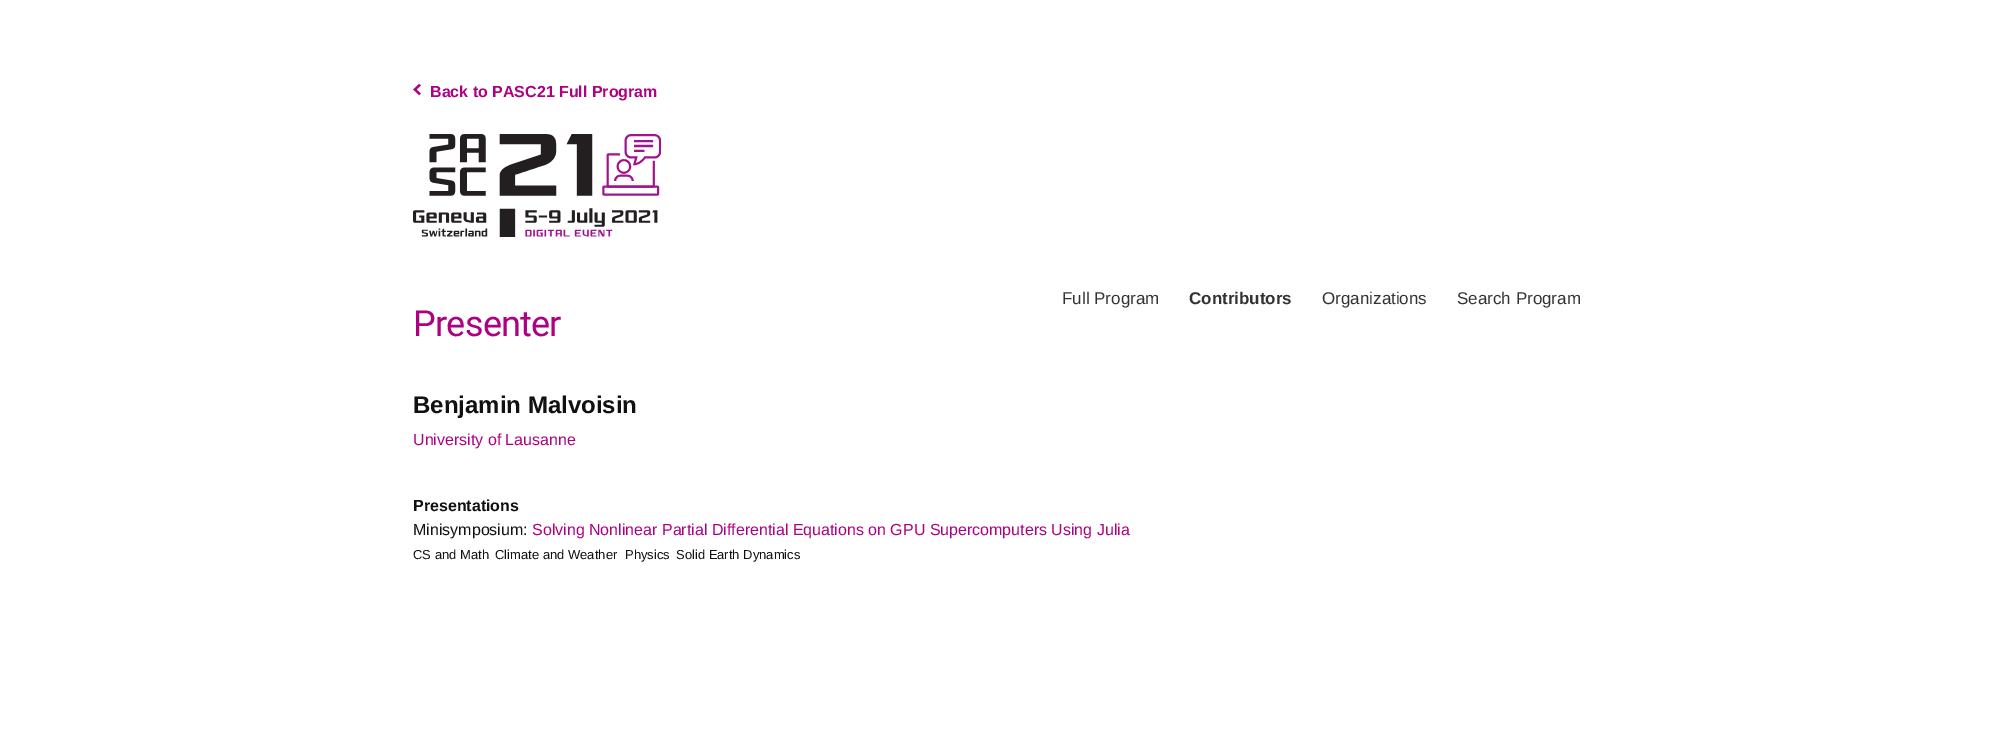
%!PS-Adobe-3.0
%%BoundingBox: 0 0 1993 743
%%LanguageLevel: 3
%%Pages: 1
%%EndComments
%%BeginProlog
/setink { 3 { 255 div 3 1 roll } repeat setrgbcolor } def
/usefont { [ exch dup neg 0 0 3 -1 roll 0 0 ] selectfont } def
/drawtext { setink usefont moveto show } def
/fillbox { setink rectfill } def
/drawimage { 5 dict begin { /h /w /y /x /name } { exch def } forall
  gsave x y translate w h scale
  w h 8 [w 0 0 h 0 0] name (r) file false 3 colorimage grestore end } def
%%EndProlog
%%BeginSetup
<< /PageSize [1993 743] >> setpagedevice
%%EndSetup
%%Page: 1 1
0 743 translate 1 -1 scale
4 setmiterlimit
0 0 1993 743 255 255 255 fillbox
(assets/img1.rgb) 413 83 8 13 drawimage
(Back to PASC21 Full Program) 430 97 /LiberationSans-Bold 16 173 1 129 drawtext
(assets/img2.rgb) 413 134 248 103 drawimage
(Full Program) 1062 304 /LiberationSans-Regular 17 51 51 51 drawtext
(Contributors) 1189 304 /LiberationSans-Bold 17 51 51 51 drawtext
(Organizations) 1322 304 /LiberationSans-Regular 17 51 51 51 drawtext
(Search Program) 1457 304 /LiberationSans-Regular 17 51 51 51 drawtext
(Benjamin Malvoisin) 413 413 /LiberationSans-Bold 24 17 17 17 drawtext
(University of Lausanne) 413 445 /LiberationSans-Regular 16 173 1 129 drawtext
(Presentations) 413 511 /LiberationSans-Bold 16 17 17 17 drawtext
(Minisymposium:) 413 535 /LiberationSans-Regular 16 17 17 17 drawtext
(Solving Nonlinear Partial Differential Equations on GPU Supercomputers Using Julia) 532 535 /LiberationSans-Regular 16 173 1 129 drawtext
(CS and Math) 413 559 /LiberationSans-Regular 13 17 17 17 drawtext
(Climate and Weather) 495 559 /LiberationSans-Regular 13 17 17 17 drawtext
(Physics) 625 559 /LiberationSans-Regular 13 17 17 17 drawtext
(Solid Earth Dynamics) 676 559 /LiberationSans-Regular 13 17 17 17 drawtext
/Roboto-Regular 36 usefont
173 1 129 setink
413 336 moveto -0.75 0 (Presenter) ashow
showpage
%%EOF
